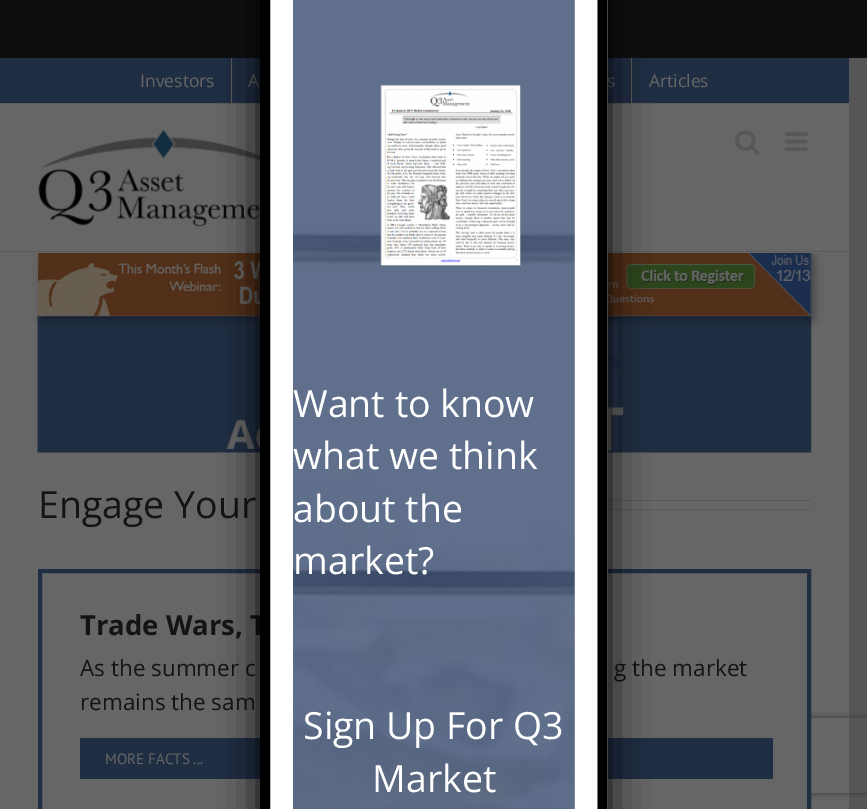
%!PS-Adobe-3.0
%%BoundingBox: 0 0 867 809
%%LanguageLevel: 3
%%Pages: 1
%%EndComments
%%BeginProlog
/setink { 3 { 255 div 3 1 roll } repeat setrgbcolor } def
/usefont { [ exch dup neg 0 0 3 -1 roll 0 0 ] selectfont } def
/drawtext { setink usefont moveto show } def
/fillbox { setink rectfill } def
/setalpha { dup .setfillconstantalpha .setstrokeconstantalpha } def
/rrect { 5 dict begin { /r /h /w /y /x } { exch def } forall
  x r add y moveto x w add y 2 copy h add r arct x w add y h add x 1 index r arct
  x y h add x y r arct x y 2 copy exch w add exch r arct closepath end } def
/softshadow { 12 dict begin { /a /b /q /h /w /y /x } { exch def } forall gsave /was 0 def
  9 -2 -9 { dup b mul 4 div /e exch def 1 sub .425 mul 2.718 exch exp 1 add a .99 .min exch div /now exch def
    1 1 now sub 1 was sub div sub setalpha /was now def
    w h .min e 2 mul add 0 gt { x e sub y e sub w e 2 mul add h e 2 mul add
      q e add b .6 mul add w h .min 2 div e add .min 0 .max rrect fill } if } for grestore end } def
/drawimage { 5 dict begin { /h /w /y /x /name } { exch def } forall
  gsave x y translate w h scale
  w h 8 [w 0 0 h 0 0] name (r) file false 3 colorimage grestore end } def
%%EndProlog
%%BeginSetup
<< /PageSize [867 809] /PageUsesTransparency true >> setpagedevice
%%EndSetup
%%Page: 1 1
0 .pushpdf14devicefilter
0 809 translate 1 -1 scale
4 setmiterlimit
0 0 867 809 86 86 86 fillbox
0 0 867 58 12 14 16 fillbox
0 253 849 556 102 102 102 fillbox
0 58 849 45 32 46 68 fillbox
0 103 849 1 92 92 92 fillbox
(Investors) 140 87 /OpenSans-Regular 17.5 102 102 102 drawtext
231 58 1 45 92 92 92 fillbox
(A) 248 87 /OpenSans-Regular 17.5 102 102 102 drawtext
(s) 607 87 /OpenSans-Regular 17.5 102 102 102 drawtext
631 58 1 45 92 92 92 fillbox
(Articles) 649 87 /OpenSans-Regular 17.5 102 102 102 drawtext
(assets/img5.rgb) 37 316 775 137 drawimage
0 0 0 setink
41 256 774 64 0 4.5 0.3 softshadow
0 104 849 149 102 102 102 fillbox
0 251 849 1 92 92 92 fillbox
(assets/img1.rgb) 38 129 222 98 drawimage
(assets/img2.rgb) 735 130 25 25 drawimage
(assets/img3.rgb) 785 132 23 19 drawimage
(assets/img4.rgb) 38 253 774 63 drawimage
(Engage Your) 38 518 /OpenSans-Regular 37.5 20 20 20 drawtext
608 500 203 1 90 89 89 fillbox
608 509 203 1 90 89 89 fillbox
gsave
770 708 moveto 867 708 lineto 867 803 lineto 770 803 lineto closepath 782.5 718 moveto 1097.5 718 lineto 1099 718 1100 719 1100 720.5 curveto 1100 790.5 lineto 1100 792 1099 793 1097.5 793 curveto 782.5 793 lineto 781 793 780 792 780 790.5 curveto 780 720.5 lineto 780 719 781 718 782.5 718 curveto closepath eoclip newpath
51 51 51 setink
780 718 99 75 2.5 3 1 softshadow
grestore
775 713 32 85 102 102 102 fillbox
32 46 68 setink
4 setlinewidth
40 571 769 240 rectstroke
(Trade Wars, T) 80 635 /OpenSans-Bold 27.5 20 20 20 drawtext
(As the summer c) 80 676 /OpenSans-Regular 22.5 20 20 20 drawtext
(g the market) 614 676 /OpenSans-Regular 22.5 20 20 20 drawtext
(remains the sam) 80 710 /OpenSans-Regular 22.5 20 20 20 drawtext
80 738 693 41 32 46 68 fillbox
(MORE FACTS ...) 105 764 /PTSans-Regular 15 102 102 102 drawtext
2 2 2 setink
260 -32 348 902 4 19 1 softshadow
270 0 338 809 255 255 255 fillbox
0 0 0 setink
10 setlinewidth
265 -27.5 moveto 602.5 -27.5 lineto 602.5 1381 lineto 265 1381 lineto closepath stroke
(assets/img6.rgb) 293 0 282 809 drawimage
(assets/img7.rgb) 380 84 141 182 drawimage
(Want to know) 293 417 /OpenSans-Regular 37.5 255 255 255 drawtext
(what we think) 293 469 /OpenSans-Regular 37.5 255 255 255 drawtext
(about the) 293 522 /OpenSans-Regular 37.5 255 255 255 drawtext
(market?) 293 574 /OpenSans-Regular 37.5 255 255 255 drawtext
(Sign Up For Q3) 303 739 /OpenSans-Regular 37.5 255 255 255 drawtext
(Market) 372 792 /OpenSans-Regular 37.5 255 255 255 drawtext
.poppdf14devicefilter showpage
%%EOF
